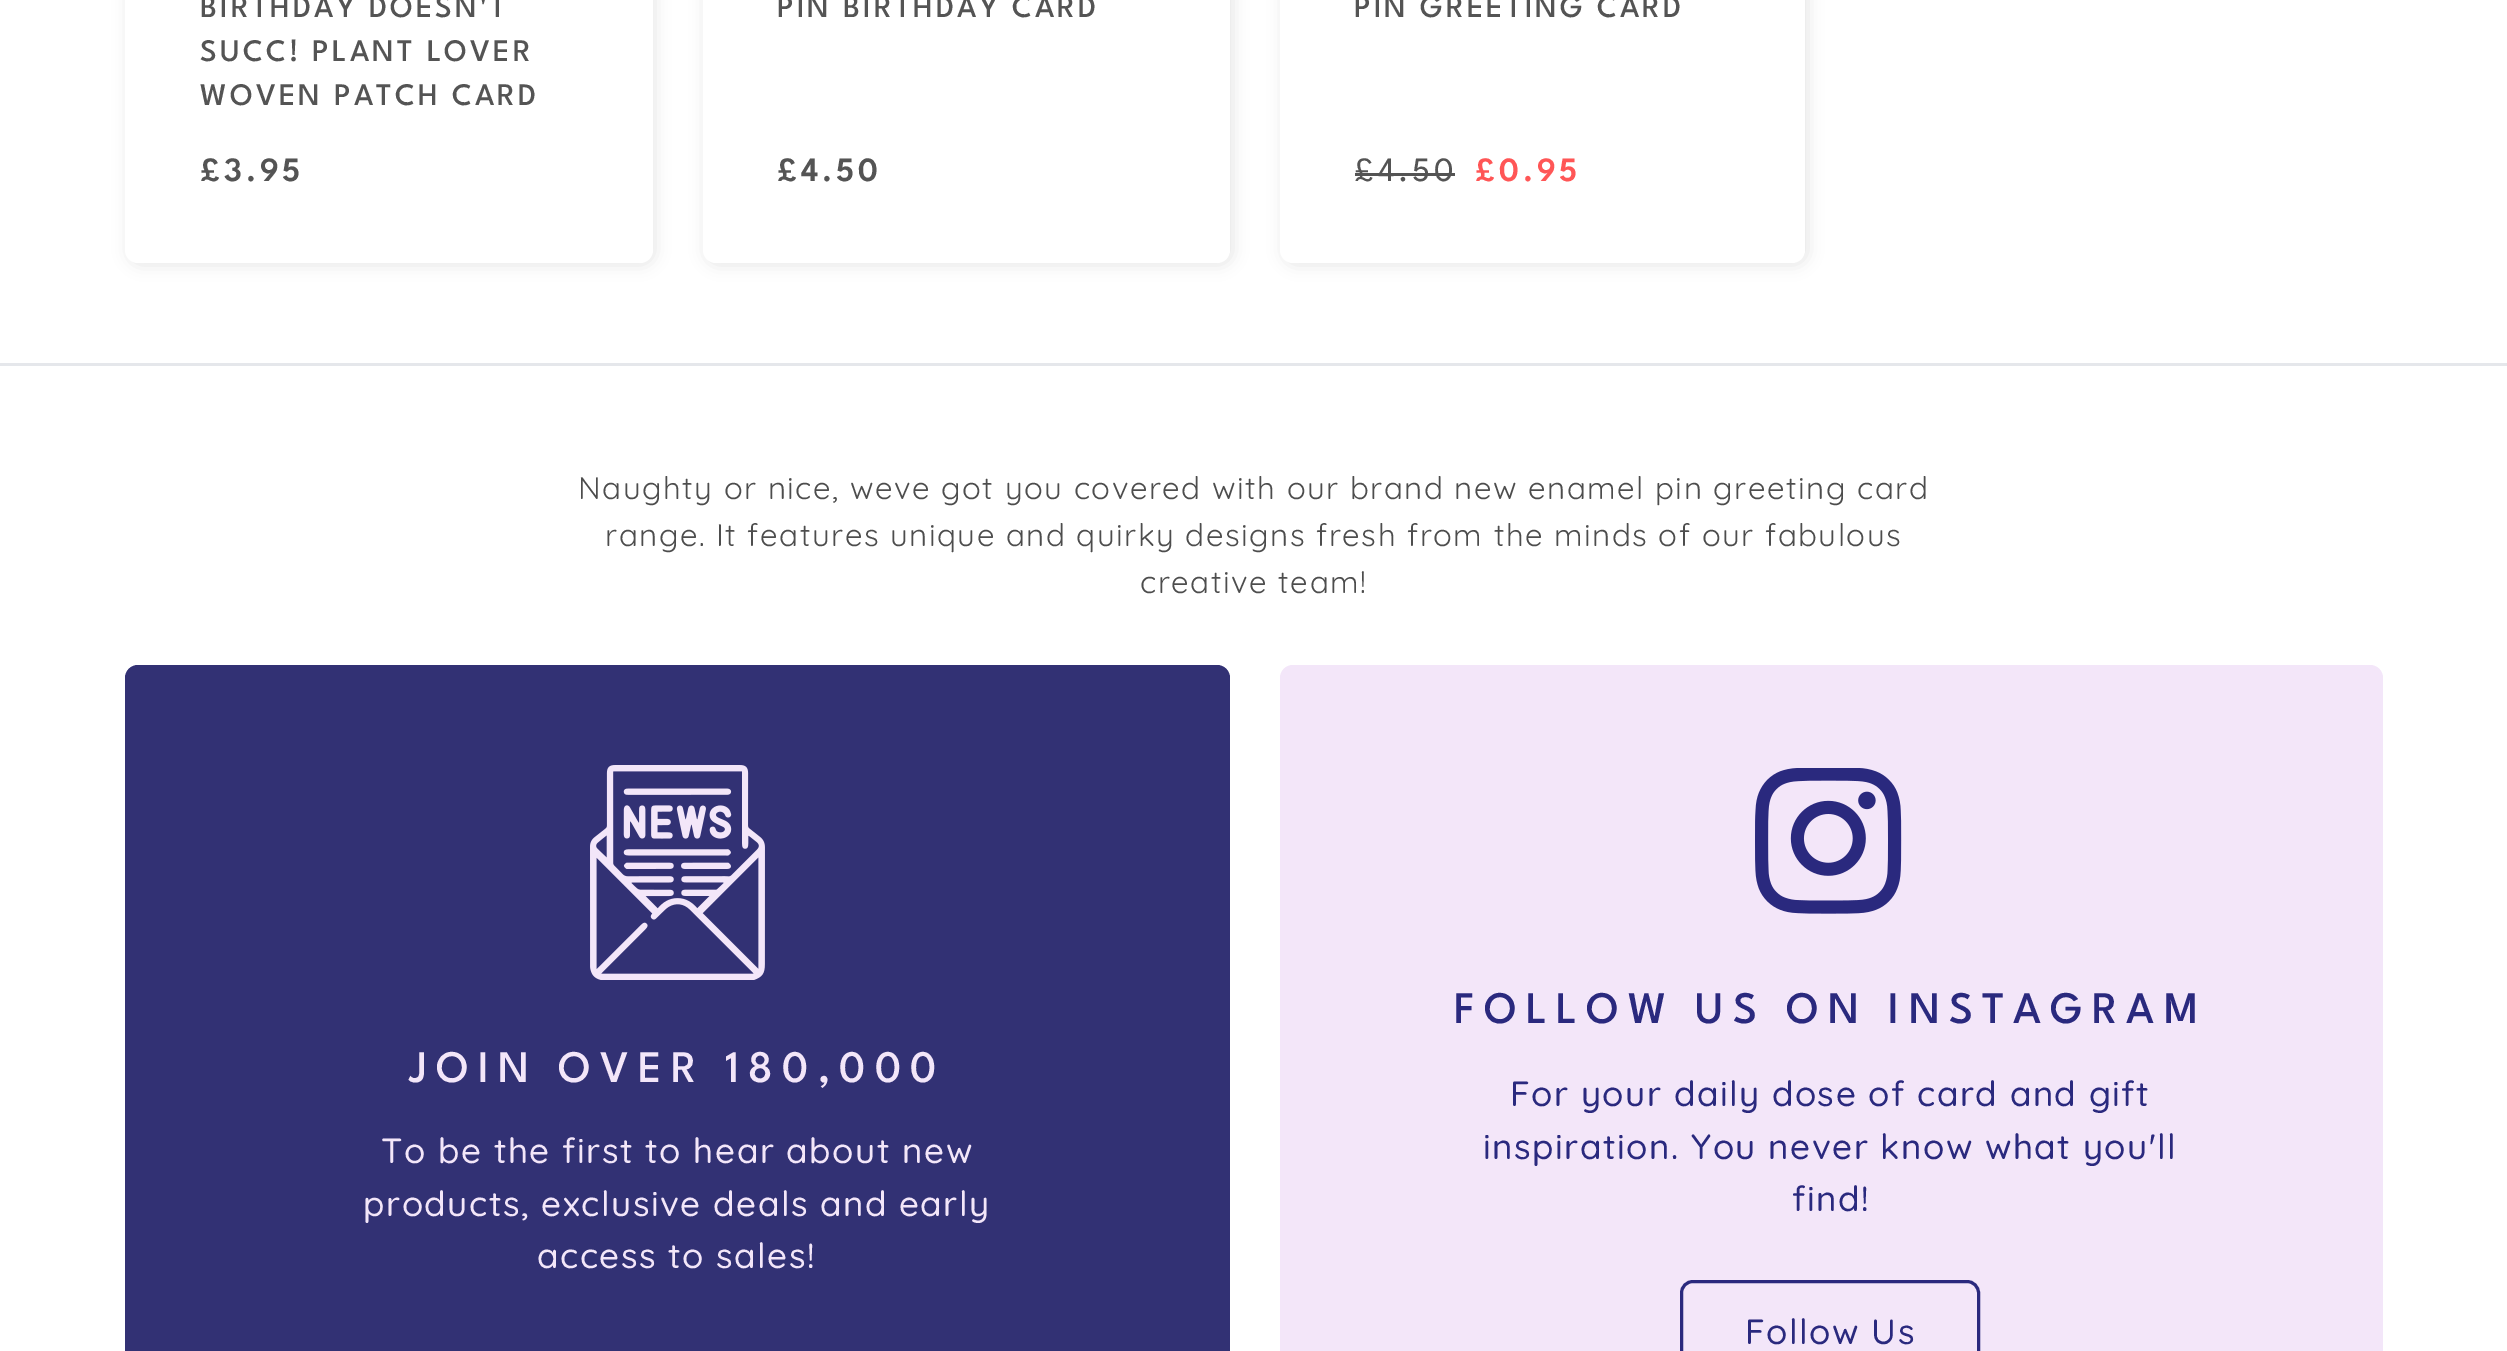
%!PS-Adobe-3.0
%%BoundingBox: 0 0 2507 1351
%%LanguageLevel: 3
%%Pages: 1
%%EndComments
%%BeginProlog
/setink { 3 { 255 div 3 1 roll } repeat setrgbcolor } def
/usefont { [ exch dup neg 0 0 3 -1 roll 0 0 ] selectfont } def
/fillbox { setink rectfill } def
/setalpha { dup .setfillconstantalpha .setstrokeconstantalpha } def
/rrect { 5 dict begin { /r /h /w /y /x } { exch def } forall
  x r add y moveto x w add y 2 copy h add r arct x w add y h add x 1 index r arct
  x y h add x y r arct x y 2 copy exch w add exch r arct closepath end } def
/softshadow { 12 dict begin { /a /b /q /h /w /y /x } { exch def } forall gsave /was 0 def
  9 -2 -9 { dup b mul 4 div /e exch def 1 sub .425 mul 2.718 exch exp 1 add a .99 .min exch div /now exch def
    1 1 now sub 1 was sub div sub setalpha /was now def
    w h .min e 2 mul add 0 gt { x e sub y e sub w e 2 mul add h e 2 mul add
      q e add b .6 mul add w h .min 2 div e add .min 0 .max rrect fill } if } for grestore end } def
/drawimage { 5 dict begin { /h /w /y /x /name } { exch def } forall
  gsave x y translate w h scale
  w h 8 [w 0 0 h 0 0] name (r) file false 3 colorimage grestore end } def
%%EndProlog
%%BeginSetup
<< /PageSize [2507 1351] /PageUsesTransparency true >> setpagedevice
%%EndSetup
%%Page: 1 1
0 .pushpdf14devicefilter
0 1351 translate 1 -1 scale
4 setmiterlimit
0 0 2507 1351 255 255 255 fillbox
0 0 0 setink
128 -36 527 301 13 7.5 0.1 softshadow
255 255 255 setink
125 -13 528 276 13 rrect fill
/LeagueSpartan-Medium 31.25 usefont
84 84 84 setink
200 17 moveto 3.1 0 (BIRTHDAY DOESN'T) ashow
200 61 moveto 3.1 0 (SUCC! PLANT LOVER) ashow
200 105 moveto 3.1 0 (WOVEN PATCH CARD) ashow
/LeagueSpartan-SemiBold 34 usefont
200 181 moveto 3.5 0 (£3.95) ashow
0 0 0 setink
705 -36 528 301 13 7.5 0.1 softshadow
255 255 255 setink
703 -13 527 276 13 rrect fill
/LeagueSpartan-Medium 31.25 usefont
84 84 84 setink
777 17 moveto 3.1 0 (PIN BIRTHDAY CARD) ashow
/LeagueSpartan-SemiBold 34 usefont
777 181 moveto 3.5 0 (£4.50) ashow
0 0 0 setink
1283 -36 525 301 13 7.5 0.1 softshadow
255 255 255 setink
1280 -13 525 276 13 rrect fill
/LeagueSpartan-Medium 31.25 usefont
84 84 84 setink
1354 17 moveto 3.1 0 (PIN GREETING CARD) ashow
/LeagueSpartan-Regular 34 usefont
1354 181 moveto 3.5 0 (£4.50) ashow
1355 173 100 3 84 84 84 fillbox
/LeagueSpartan-SemiBold 34 usefont
255 86 86 setink
1475 181 moveto 3.5 0 (£0.95) ashow
0 363 2507 3 229 231 235 fillbox
/Quicksand-Regular 31.25 usefont
77 77 77 setink
578 499 moveto 1.5 0 (Naughty or nice, weve got you covered with our brand new enamel pin greeting card) ashow
605 546 moveto 1.5 0 (range. It features unique and quirky designs fresh from the minds of our fabulous) ashow
1140 593 moveto 1.5 0 (creative team!) ashow
50 49 116 setink
125 665 1105 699 13 rrect fill
(assets/img1.rgb) 590 765 175 215 drawimage
/LeagueSpartan-Medium 45 usefont
243 230 249 setink
409 1082 moveto 9 0 (JOIN OVER 180,000) ashow
/Quicksand-Medium 35 usefont
381 1163 moveto 1.5 0 (To be the first to hear about new) ashow
363 1216 moveto 1.5 0 (products, exclusive deals and early) ashow
537 1268 moveto 1.5 0 (access to sales!) ashow
1280 665 1103 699 13 rrect fill
(assets/img2.rgb) 1755 768 147 146 drawimage
/LeagueSpartan-Medium 45 usefont
42 41 126 setink
1454 1023 moveto 9 0 (FOLLOW US ON INSTAGRAM) ashow
/Quicksand-Medium 35 usefont
1510 1106 moveto 1.5 0 (For your daily dose of card and gift) ashow
1483 1159 moveto 1.5 0 (inspiration. You never know what you'll) ashow
1792 1211 moveto 1.5 0 (find!) ashow
3 setlinewidth
1681.5 1281.5 297 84 11.5 rrect stroke
1745 1344 moveto 1.5 0 (Follow Us) ashow
.poppdf14devicefilter showpage
%%EOF
